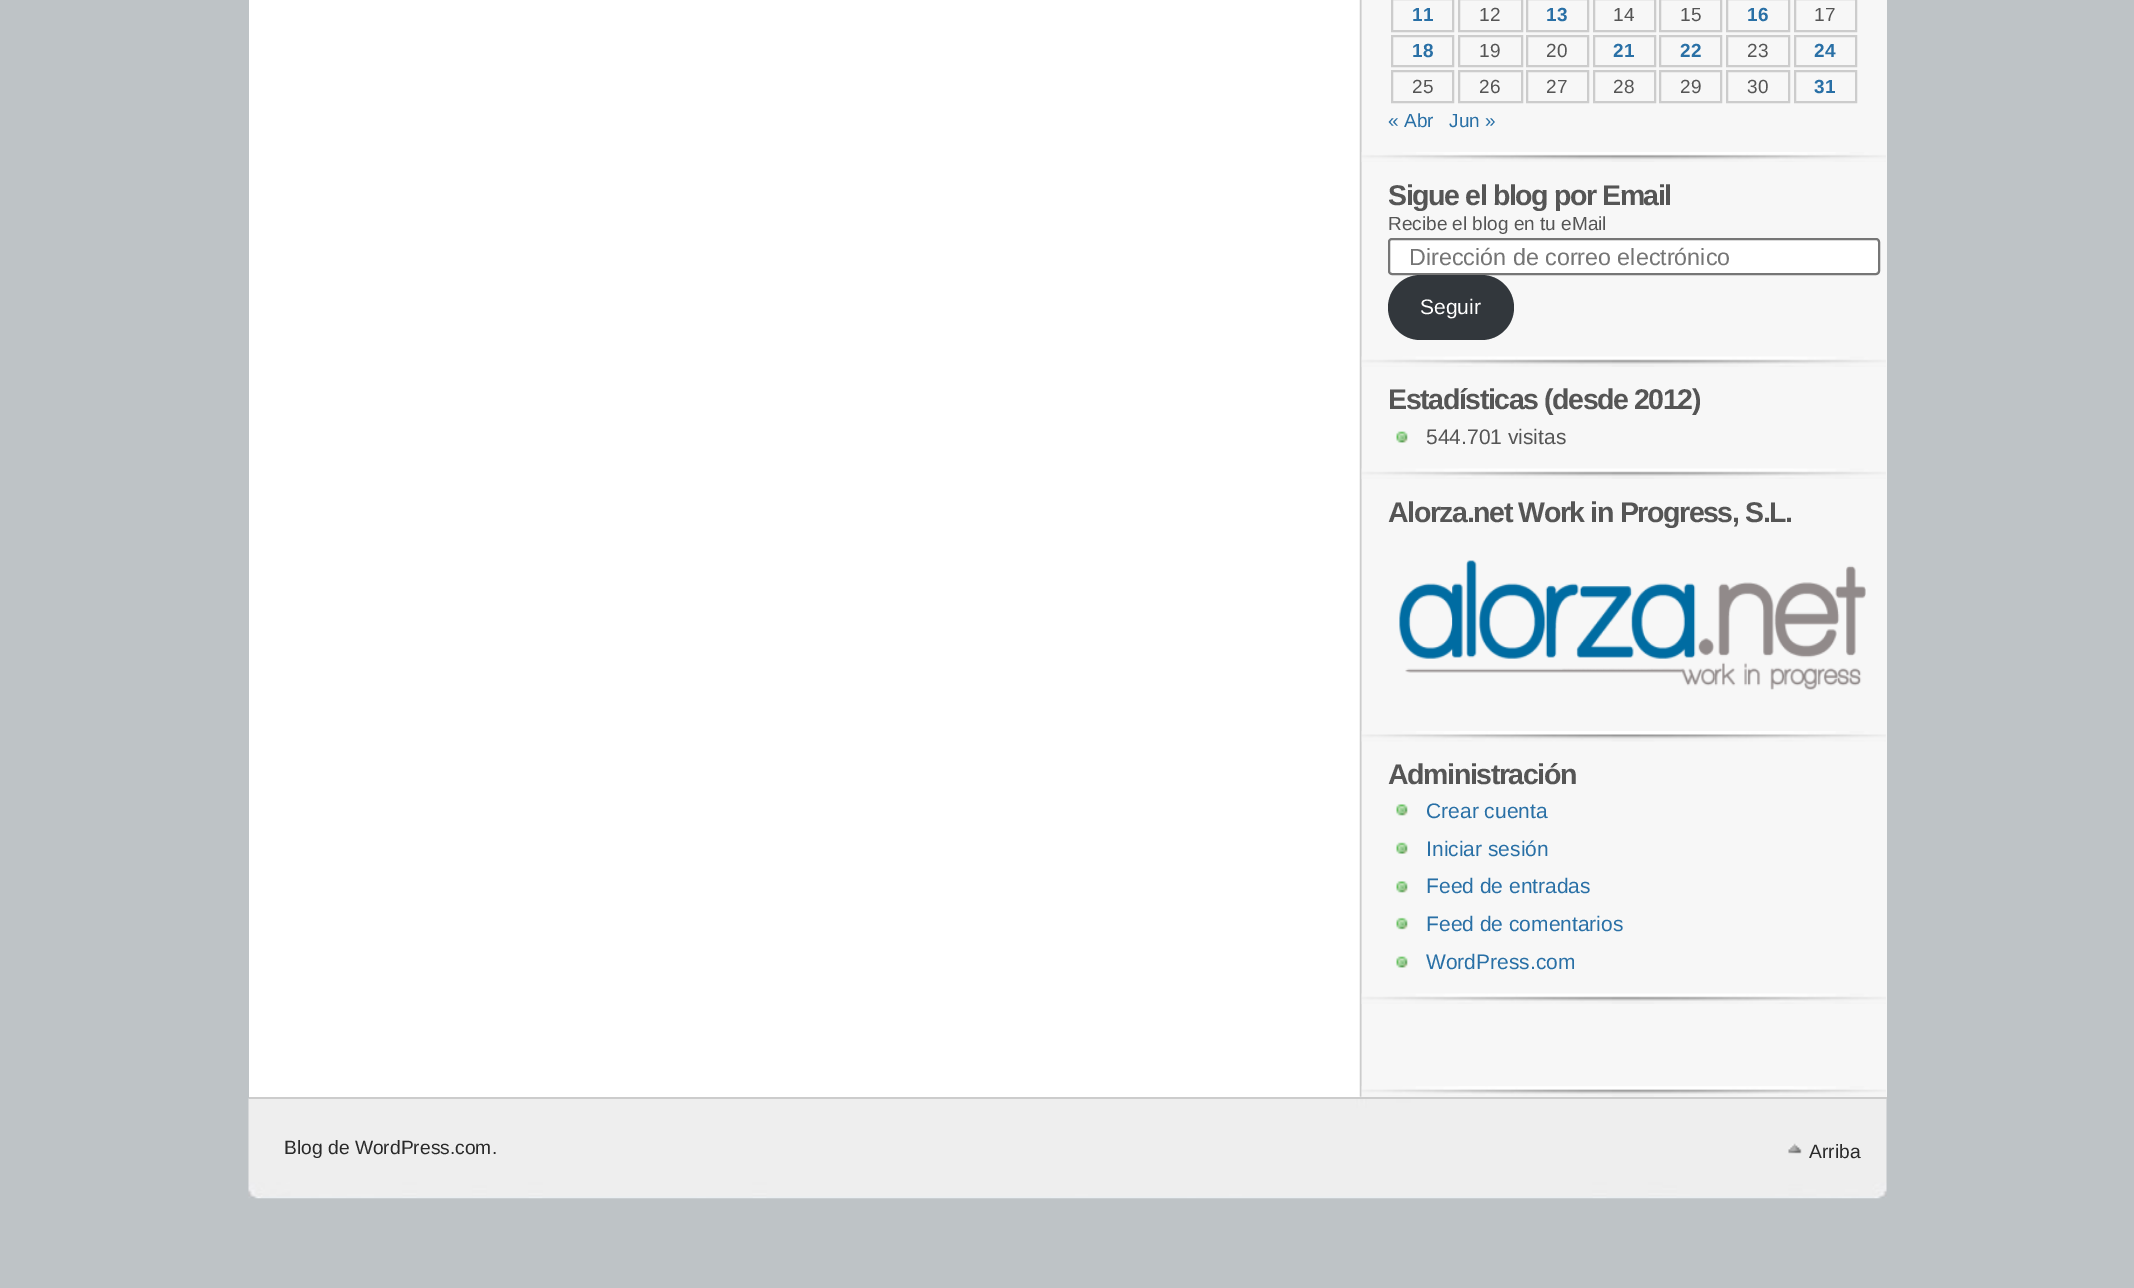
%!PS-Adobe-3.0
%%BoundingBox: 0 0 2134 1288
%%LanguageLevel: 3
%%Pages: 1
%%EndComments
%%BeginProlog
/setink { 3 { 255 div 3 1 roll } repeat setrgbcolor } def
/usefont { [ exch dup neg 0 0 3 -1 roll 0 0 ] selectfont } def
/drawtext { setink usefont moveto show } def
/fillbox { setink rectfill } def
/rrect { 5 dict begin { /r /h /w /y /x } { exch def } forall
  x r add y moveto x w add y 2 copy h add r arct x w add y h add x 1 index r arct
  x y h add x y r arct x y 2 copy exch w add exch r arct closepath end } def
/drawimage { 5 dict begin { /h /w /y /x /name } { exch def } forall
  gsave x y translate w h scale
  w h 8 [w 0 0 h 0 0] name (r) file false 3 colorimage grestore end } def
%%EndProlog
%%BeginSetup
<< /PageSize [2134 1288] >> setpagedevice
%%EndSetup
%%Page: 1 1
0 1288 translate 1 -1 scale
4 setmiterlimit
0 0 2134 1288 190 195 198 fillbox
249 0 1113 1097 255 255 255 fillbox
(assets/img1.rgb) 1359 0 3 1097 drawimage
1362 0 525 1097 247 247 247 fillbox
(assets/img2.rgb) 1361 152 525 10 drawimage
204 204 204 setink
2 setlinewidth
1392 -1 61 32 rectstroke
(11) 1412 21 /LiberationSans-Bold 19 41 112 166 drawtext
204 204 204 setink
1459 -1 63 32 rectstroke
(12) 1479 21 /LiberationSans-Regular 19 85 85 85 drawtext
204 204 204 setink
1527 -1 61 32 rectstroke
(13) 1546 21 /LiberationSans-Bold 19 41 112 166 drawtext
204 204 204 setink
1594 -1 61 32 rectstroke
(14) 1613 21 /LiberationSans-Regular 19 85 85 85 drawtext
204 204 204 setink
1660 -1 61 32 rectstroke
(15) 1680 21 /LiberationSans-Regular 19 85 85 85 drawtext
204 204 204 setink
1727 -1 62 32 rectstroke
(16) 1747 21 /LiberationSans-Bold 19 41 112 166 drawtext
204 204 204 setink
1795 -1 61 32 rectstroke
(17) 1814 21 /LiberationSans-Regular 19 85 85 85 drawtext
204 204 204 setink
1392 36 61 30 rectstroke
(18) 1412 57 /LiberationSans-Bold 19 41 112 166 drawtext
204 204 204 setink
1459 36 63 30 rectstroke
(19) 1479 57 /LiberationSans-Regular 19 85 85 85 drawtext
204 204 204 setink
1527 36 61 30 rectstroke
(20) 1546 57 /LiberationSans-Regular 19 85 85 85 drawtext
204 204 204 setink
1594 36 61 30 rectstroke
(21) 1613 57 /LiberationSans-Bold 19 41 112 166 drawtext
204 204 204 setink
1660 36 61 30 rectstroke
(22) 1680 57 /LiberationSans-Bold 19 41 112 166 drawtext
204 204 204 setink
1727 36 62 30 rectstroke
(23) 1747 57 /LiberationSans-Regular 19 85 85 85 drawtext
204 204 204 setink
1795 36 61 30 rectstroke
(24) 1814 57 /LiberationSans-Bold 19 41 112 166 drawtext
204 204 204 setink
1392 71 61 31 rectstroke
(25) 1412 93 /LiberationSans-Regular 19 85 85 85 drawtext
204 204 204 setink
1459 71 63 31 rectstroke
(26) 1479 93 /LiberationSans-Regular 19 85 85 85 drawtext
204 204 204 setink
1527 71 61 31 rectstroke
(27) 1546 93 /LiberationSans-Regular 19 85 85 85 drawtext
204 204 204 setink
1594 71 61 31 rectstroke
(28) 1613 93 /LiberationSans-Regular 19 85 85 85 drawtext
204 204 204 setink
1660 71 61 31 rectstroke
(29) 1680 93 /LiberationSans-Regular 19 85 85 85 drawtext
204 204 204 setink
1727 71 62 31 rectstroke
(30) 1747 93 /LiberationSans-Regular 19 85 85 85 drawtext
204 204 204 setink
1795 71 61 31 rectstroke
(31) 1814 93 /LiberationSans-Bold 19 41 112 166 drawtext
(« Abr) 1388 127 /LiberationSans-Regular 19 41 112 166 drawtext
(Jun ») 1449 127 /LiberationSans-Regular 19 41 112 166 drawtext
(assets/img3.rgb) 1361 356 525 11 drawimage
/LiberationSans-Bold 28.5 usefont
85 85 85 setink
1388 205 moveto -1.4 0 (Sigue el blog por Email) ashow
(Recibe el blog en tu eMail) 1388 230 /LiberationSans-Regular 19 85 85 85 drawtext
255 255 255 setink
1389 239 490 35 3 rrect gsave fill grestore
118 118 118 setink
stroke
(Dirección de correo electrónico) 1409 265 /LiberationSans-Regular 23.3 117 117 117 drawtext
50 55 60 setink
1388 275 126 65 32.5 rrect fill
(Seguir) 1420 314 /LiberationSans-Regular 21 255 255 255 drawtext
(assets/img3.rgb) 1361 468 525 11 drawimage
/LiberationSans-Bold 28.5 usefont
85 85 85 setink
1388 409 moveto -1.4 0 (Estadísticas \(desde 2012\)) ashow
(assets/img4.rgb) 1396 431 12 12 drawimage
(544.701 visitas) 1426 444 /LiberationSans-Regular 21 85 85 85 drawtext
(assets/img5.rgb) 1361 731 525 11 drawimage
/LiberationSans-Bold 28.5 usefont
1388 522 moveto -1.4 0 (Alorza.net Work in Progress, S.L.) ashow
(assets/img6.rgb) 1399 560 467 130 drawimage
(assets/img3.rgb) 1361 993 525 11 drawimage
1388 784 moveto -1.4 0 (Administración) ashow
(assets/img7.rgb) 1396 804 12 12 drawimage
(Crear cuenta) 1426 818 /LiberationSans-Regular 21 41 112 166 drawtext
(assets/img8.rgb) 1396 842 12 12 drawimage
(Iniciar sesión) 1426 856 /LiberationSans-Regular 21 41 112 166 drawtext
(assets/img7.rgb) 1396 881 12 12 drawimage
(Feed de entradas) 1426 893 /LiberationSans-Regular 21 41 112 166 drawtext
(assets/img9.rgb) 1396 917 12 13 drawimage
(Feed de comentarios) 1426 931 /LiberationSans-Regular 21 41 112 166 drawtext
(assets/img4.rgb) 1396 956 12 12 drawimage
(WordPress.com) 1426 969 /LiberationSans-Regular 21 41 112 166 drawtext
(assets/img10.rgb) 1361 1086 525 11 drawimage
(assets/img11.rgb) 248 1098 1639 101 drawimage
249 1097 1638 2 204 204 204 fillbox
(Blog de WordPress.com.) 284 1154 /LiberationSans-Regular 19.25 42 42 42 drawtext
(assets/img12.rgb) 1788 1143 14 11 drawimage
(Arriba) 1809 1158 /LiberationSans-Regular 19.25 42 42 42 drawtext
showpage
%%EOF
